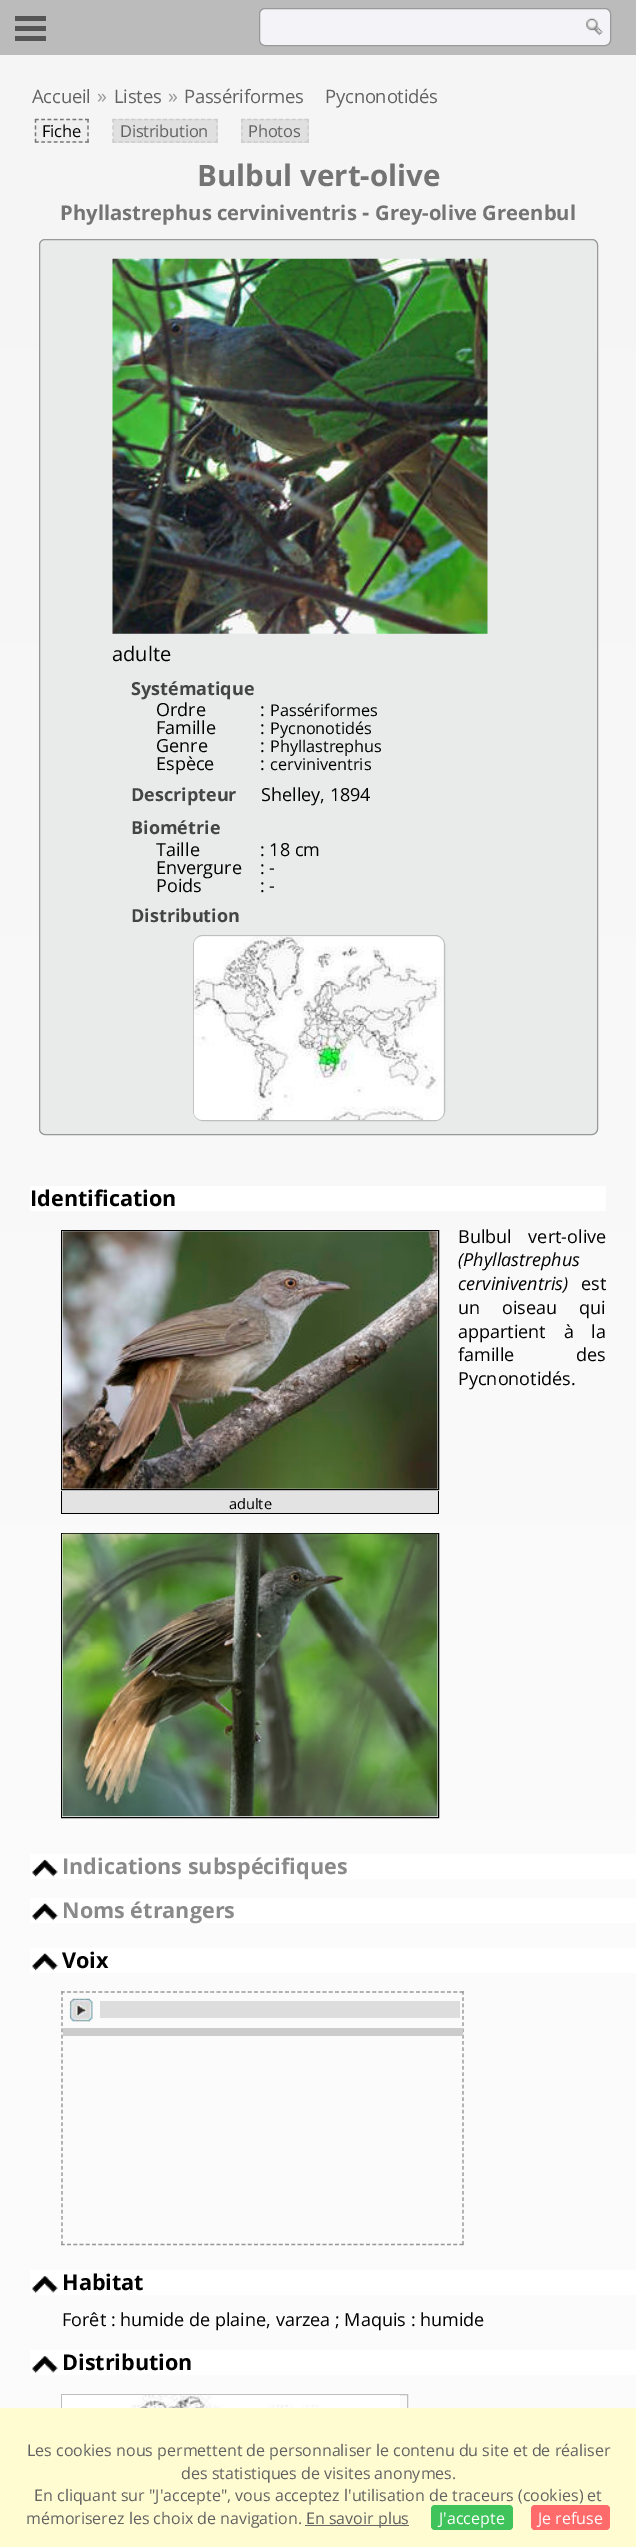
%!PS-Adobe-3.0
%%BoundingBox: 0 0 636 2547
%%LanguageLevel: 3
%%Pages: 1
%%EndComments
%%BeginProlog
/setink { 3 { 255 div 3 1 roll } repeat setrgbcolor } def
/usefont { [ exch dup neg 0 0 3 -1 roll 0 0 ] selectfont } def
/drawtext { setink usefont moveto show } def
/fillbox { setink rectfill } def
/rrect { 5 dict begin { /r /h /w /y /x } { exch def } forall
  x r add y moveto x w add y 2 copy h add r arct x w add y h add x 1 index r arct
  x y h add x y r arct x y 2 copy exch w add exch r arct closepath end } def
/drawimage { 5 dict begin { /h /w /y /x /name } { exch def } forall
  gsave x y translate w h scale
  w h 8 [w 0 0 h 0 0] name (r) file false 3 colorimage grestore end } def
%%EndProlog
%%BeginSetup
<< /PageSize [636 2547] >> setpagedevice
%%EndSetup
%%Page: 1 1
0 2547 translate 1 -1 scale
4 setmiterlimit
0 0 636 2547 255 255 255 fillbox
gsave 0 0 moveto 636 0 lineto 636 55 lineto 0 55 lineto closepath clip newpath
<< /ShadingType 2 /ColorSpace /DeviceRGB /Coords [318 0 318 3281] /Extend [true true] /Function << /FunctionType 3 /Domain [0 1] /Functions [<< /FunctionType 2 /Domain [0 1] /C0 [0.733 0.733 0.733] /C1 [0.733 0.733 0.733] /N 1 >> << /FunctionType 2 /Domain [0 1] /C0 [0.733 0.733 0.733] /C1 [0.867 0.867 0.867] /N 1 >> << /FunctionType 2 /Domain [0 1] /C0 [0.867 0.867 0.867] /C1 [1 1 1] /N 1 >> << /FunctionType 2 /Domain [0 1] /C0 [1 1 1] /C1 [1 1 1] /N 1 >>] /Bounds [0.1 0.17 0.9] /Encode [0 1 0 1 0 1 0 1] >> >> shfill grestore
15 36 31 5 85 85 85 fillbox
15 26 31 5 85 85 85 fillbox
15 16 31 5 85 85 85 fillbox
243 243 248 setink
259.5 8.5 351 37 5.5 rrect gsave fill grestore
153 153 153 setink
stroke
(assets/img1.rgb) 586 18 17 18 drawimage
gsave 0 55 moveto 636 55 lineto 636 2408 lineto 0 2408 lineto closepath clip newpath
<< /ShadingType 2 /ColorSpace /DeviceRGB /Coords [318 55 318 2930] /Extend [true true] /Function << /FunctionType 2 /Domain [0 1] /C0 [0.961 0.961 0.961] /C1 [0.996 0.996 0.996] /N 1 >> >> shfill grestore
/OpenSans-Regular 18.5 usefont
98 98 98 setink
32 103 moveto -0.25 0 (Accueil) ashow
(») 97 103 /OpenSans-Regular 20 153 153 153 drawtext
/OpenSans-Regular 18.5 usefont
98 98 98 setink
114 103 moveto -0.25 0 (Listes) ashow
(») 168 103 /OpenSans-Regular 20 153 153 153 drawtext
/OpenSans-Regular 18.5 usefont
98 98 98 setink
184 103 moveto -0.25 0 (Passériformes) ashow
325 103 moveto -0.25 0 (Pycnonotidés) ashow
35 119 54 24 239 239 239 fillbox
119 119 119 setink
1.2 setlinewidth
[3.75 2.5] 0 setdash
35 119.5 moveto 89 119.5 lineto stroke
[3.75 2.91] 0 setdash
88 119 moveto 88 142.5 lineto stroke
[3.75 2.5] 0 setdash
35 142 moveto 89 142 lineto stroke
[3.75 2.91] 0 setdash
35.5 119 moveto 35.5 142.5 lineto stroke
/OpenSans-Regular 16.5 usefont
0 0 0 setink
42 137 moveto -0.25 0 (Fiche) ashow
113 119 105 24 224 224 224 fillbox
204 204 204 setink
[3.75 2.58] 0 setdash
112.5 119.5 moveto 217.5 119.5 lineto stroke
[3.75 2.91] 0 setdash
217 119 moveto 217 142.5 lineto stroke
[3.75 2.58] 0 setdash
112.5 142 moveto 217.5 142 lineto stroke
[3.75 2.91] 0 setdash
113 119 moveto 113 142.5 lineto stroke
98 98 98 setink
120 137 moveto -0.25 0 (Distribution) ashow
241 119 68 24 224 224 224 fillbox
204 204 204 setink
[3.75 2.62] 0 setdash
241 119.5 moveto 309 119.5 lineto stroke
[3.75 2.91] 0 setdash
308 119 moveto 308 142.5 lineto stroke
[3.75 2.62] 0 setdash
241 142 moveto 309 142 lineto stroke
[3.75 2.91] 0 setdash
242 119 moveto 242 142.5 lineto stroke
98 98 98 setink
248 137 moveto -0.25 0 (Photos) ashow
(Bulbul vert-olive) 197 186 /OpenSans-Bold 29.5 116 116 116 drawtext
(Phyllastrephus cerviniventris) 60 220 /OpenSans-Bold 20.25 116 116 116 drawtext
(-) 362 220 /OpenSans-Bold 22 116 116 116 drawtext
(Grey-olive Greenbul) 375 220 /OpenSans-Bold 20.25 116 116 116 drawtext
233 235 235 setink
39.5 239.5 558 895 5.5 rrect gsave fill grestore
153 153 153 setink
1 setlinewidth
[] 0 setdash
stroke
(assets/img2.rgb) 112 258 376 376 drawimage
(adulte) 112 661 /OpenSans-Regular 20 0 0 0 drawtext
(Systématique) 131 695 /OpenSans-Bold 18 68 68 68 drawtext
(Ordre) 156 716 /OpenSans-Regular 18 0 0 0 drawtext
(:) 260 716 /OpenSans-Regular 18 0 0 0 drawtext
(Passériformes) 270 716 /OpenSans-Regular 16.25 0 0 0 drawtext
(Famille) 156 734 /OpenSans-Regular 18 0 0 0 drawtext
(:) 260 734 /OpenSans-Regular 18 0 0 0 drawtext
(Pycnonotidés) 270 734 /OpenSans-Regular 16.25 0 0 0 drawtext
(Genre) 156 752 /OpenSans-Regular 18 0 0 0 drawtext
(:) 260 752 /OpenSans-Regular 18 0 0 0 drawtext
(Phyllastrephus) 270 752 /OpenSans-Regular 16.25 0 0 0 drawtext
(Espèce) 156 770 /OpenSans-Regular 18 0 0 0 drawtext
(:) 260 770 /OpenSans-Regular 18 0 0 0 drawtext
(cerviniventris) 270 770 /OpenSans-Regular 16.25 0 0 0 drawtext
(Descripteur) 131 801 /OpenSans-Bold 18 68 68 68 drawtext
(Shelley, 1894) 261 801 /OpenSans-Regular 18 0 0 0 drawtext
(Biométrie) 131 834 /OpenSans-Bold 18 68 68 68 drawtext
(Taille) 156 856 /OpenSans-Regular 18 0 0 0 drawtext
(: 18 cm) 260 856 /OpenSans-Regular 18 0 0 0 drawtext
(Envergure) 156 874 /OpenSans-Regular 18 0 0 0 drawtext
(: -) 260 874 /OpenSans-Regular 18 0 0 0 drawtext
(Poids) 156 892 /OpenSans-Regular 18 0 0 0 drawtext
(: -) 260 892 /OpenSans-Regular 18 0 0 0 drawtext
(Distribution) 131 922 /OpenSans-Bold 18 68 68 68 drawtext
190 190 190 setink
193.5 935.5 251 185 9.5 rrect stroke
(assets/img3.rgb) 193 936 251 184 drawimage
30 1186 576 25 255 255 255 fillbox
(Identification) 30 1206 /OpenSans-Bold 21.6 0 0 0 drawtext
/OpenSans-Regular 18 usefont
458 1243 moveto 12 0 32 (Bulbul vert-olive) widthshow
(\(Phyllastrephus) 458 1266 /OpenSans-Italic 18 0 0 0 drawtext
(cerviniventris\)) 458 1290 /OpenSans-Italic 18 0 0 0 drawtext
(est) 581 1290 /OpenSans-Regular 18 0 0 0 drawtext
458 1314 moveto 17 0 32 (un oiseau qui) widthshow
458 1338 moveto 13 0 32 (appartient à la) widthshow
458 1361 moveto 57 0 32 (famille des) widthshow
(Pycnonotidés.) 458 1385 /OpenSans-Regular 18 0 0 0 drawtext
61.5 1230.5 377 259 rectstroke
(assets/img4.rgb) 62 1231 376 258 drawimage
62 1491 376 22 227 227 227 fillbox
438 1491 1 23 0 0 0 fillbox
61 1513 378 1 0 0 0 fillbox
61 1491 1 23 0 0 0 fillbox
(adulte) 229 1509 /OpenSans-Regular 14.5 0 0 0 drawtext
61.5 1533.5 377 284 rectstroke
(assets/img5.rgb) 62 1533 376 284 drawimage
30 1854 606 25 255 255 255 fillbox
(assets/img6.rgb) 32 1859 26 18 drawimage
(Indications subspécifiques) 62 1874 /OpenSans-Bold 21.6 138 138 138 drawtext
30 1898 606 25 255 255 255 fillbox
(assets/img7.rgb) 32 1903 26 18 drawimage
(Noms étrangers) 62 1918 /OpenSans-Bold 21.6 138 138 138 drawtext
30 1948 606 25 255 255 255 fillbox
(assets/img7.rgb) 32 1953 26 18 drawimage
(Voix) 62 1968 /OpenSans-Bold 21.6 0 0 0 drawtext
153 153 153 setink
1.2 setlinewidth
[3.75 2.48] 0 setdash
61 1992 moveto 464 1992 lineto stroke
[3.75 2.5] 0 setdash
463 1991 moveto 463 2245 lineto stroke
[3.75 2.48] 0 setdash
61 2244.5 moveto 464 2244.5 lineto stroke
[3.75 2.5] 0 setdash
62 1991 moveto 62 2245 lineto stroke
(assets/img8.rgb) 69 1998 24 24 drawimage
100 2001 360 17 221 221 221 fillbox
63 2028 400 8 204 204 204 fillbox
30 2270 606 25 255 255 255 fillbox
(assets/img9.rgb) 32 2276 26 17 drawimage
(Habitat) 62 2290 /OpenSans-Bold 21.6 0 0 0 drawtext
(Forêt : humide de plaine, varzea ; Maquis : humide) 62 2326 /OpenSans-Regular 18 0 0 0 drawtext
30 2350 606 25 255 255 255 fillbox
(assets/img9.rgb) 32 2356 26 17 drawimage
(Distribution) 62 2370 /OpenSans-Bold 21.6 0 0 0 drawtext
190 190 190 setink
1 setlinewidth
[] 0 setdash
61.5 2394.5 346 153 rectstroke
(assets/img10.rgb) 62 2395 338 13 drawimage
0 2408 636 139 255 252 209 fillbox
(Les cookies nous permettent de personnaliser le contenu du site et de réaliser) 27 2456 /OpenSans-Regular 16 98 98 98 drawtext
(des statistiques de visites anonymes.) 181 2479 /OpenSans-Regular 16 98 98 98 drawtext
(En cliquant sur "J'accepte", vous acceptez l'utilisation de traceurs \(cookies\) et) 34 2501 /OpenSans-Regular 16 98 98 98 drawtext
(mémoriserez les choix de navigation.) 26 2524 /OpenSans-Regular 16 98 98 98 drawtext
305 2525 104 1 102 102 102 fillbox
(En savoir plus) 306 2524 /OpenSans-Regular 16 98 98 98 drawtext
63 195 90 setink
431 2505 82 25 4 rrect fill
(J'accepte) 439 2524 /OpenSans-Regular 16 255 255 255 drawtext
255 107 107 setink
531 2505 79 25 4 rrect fill
(Je refuse) 538 2524 /OpenSans-Regular 16 255 255 255 drawtext
showpage
%%EOF
